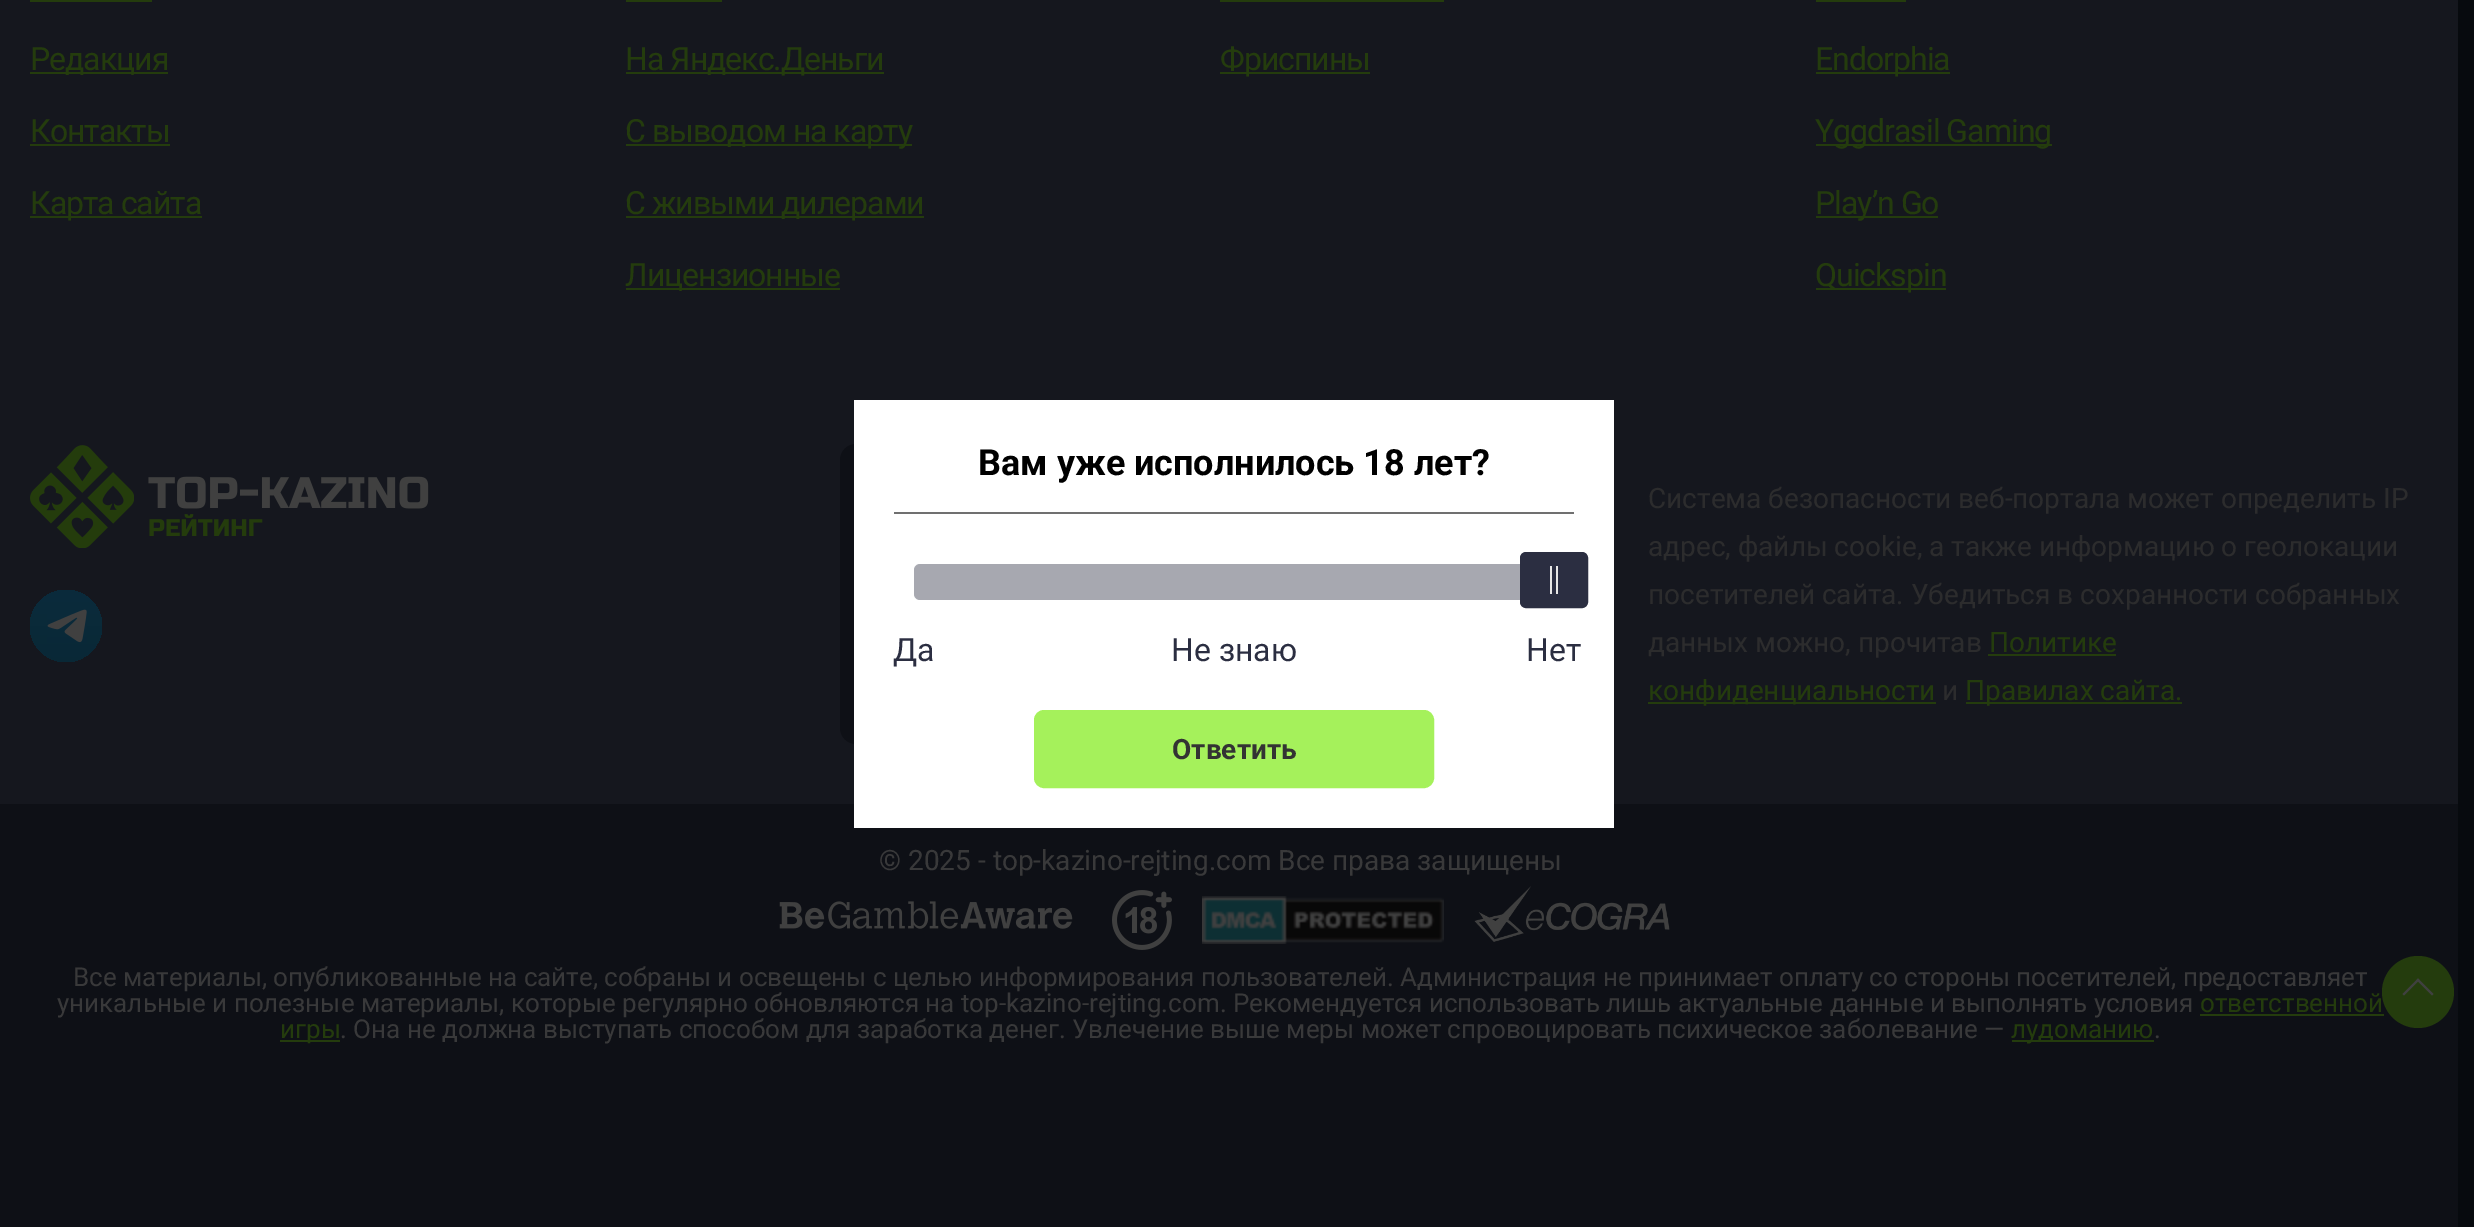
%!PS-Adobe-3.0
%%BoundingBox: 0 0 2474 1227
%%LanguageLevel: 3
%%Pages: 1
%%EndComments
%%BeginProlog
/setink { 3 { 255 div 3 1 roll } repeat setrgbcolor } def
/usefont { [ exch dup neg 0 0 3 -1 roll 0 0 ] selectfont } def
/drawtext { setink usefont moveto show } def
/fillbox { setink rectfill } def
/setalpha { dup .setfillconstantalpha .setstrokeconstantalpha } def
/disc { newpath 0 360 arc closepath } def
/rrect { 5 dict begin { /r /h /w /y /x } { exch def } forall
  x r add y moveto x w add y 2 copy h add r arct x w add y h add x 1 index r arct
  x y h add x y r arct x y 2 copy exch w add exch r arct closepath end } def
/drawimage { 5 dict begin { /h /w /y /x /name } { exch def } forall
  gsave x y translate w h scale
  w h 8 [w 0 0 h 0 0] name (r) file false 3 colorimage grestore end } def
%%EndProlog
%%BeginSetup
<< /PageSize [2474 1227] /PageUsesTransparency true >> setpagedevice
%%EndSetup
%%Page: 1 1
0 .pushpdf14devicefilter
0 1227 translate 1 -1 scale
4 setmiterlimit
0 0 2474 1227 7 10 14 fillbox
0 0 2458 804 21 23 30 fillbox
30 0 122 2 36 60 13 fillbox
30 72 138 2 36 60 13 fillbox
/Roboto-Regular 32 usefont
30 70 moveto -1 0 (Редакция) ashow
30 142 moveto -1 0 (Контакты) ashow
30 144 140 2 36 60 13 fillbox
30 216 172 2 36 60 13 fillbox
30 214 moveto -1 0 (Карта сайта) ashow
626 0 96 2 36 60 13 fillbox
626 72 258 2 36 60 13 fillbox
625 70 moveto -1 0 (На Яндекс.Деньги) ashow
626 144 286 2 36 60 13 fillbox
625 142 moveto -1 0 (С выводом на карту) ashow
626 216 298 2 36 60 13 fillbox
625 214 moveto -1 0 (С живыми дилерами) ashow
626 288 214 2 36 60 13 fillbox
625 286 moveto -1 0 (Лицензионные) ashow
1220 0 224 2 36 60 13 fillbox
1220 72 150 2 36 60 13 fillbox
1220 70 moveto -1 0 (Фриспины) ashow
1816 0 90 2 36 60 13 fillbox
1816 72 134 2 36 60 13 fillbox
1815 70 moveto -1 0 (Endorphia) ashow
1816 144 236 2 36 60 13 fillbox
1815 142 moveto -1 0 (Yggdrasil Gaming) ashow
1816 216 122 2 36 60 13 fillbox
1815 214 moveto -1 0 (Play’n Go) ashow
1816 288 130 2 36 60 13 fillbox
1815 286 moveto -1 0 (Quickspin) ashow
(assets/img1.rgb) 30 445 399 103 drawimage
gsave 66 626 36 disc clip newpath
<< /ShadingType 2 /ColorSpace /DeviceRGB /Coords [66 590 66 662] /Extend [true true] /Function << /FunctionType 3 /Domain [0 1] /Functions [<< /FunctionType 2 /Domain [0 1] /C0 [0.043 0.169 0.235] /C1 [0.035 0.157 0.212] /N 1 >> << /FunctionType 2 /Domain [0 1] /C0 [0.035 0.157 0.212] /C1 [0.035 0.157 0.212] /N 1 >>] /Bounds [0.99] /Encode [0 1 0 1] >> >> shfill grestore
(assets/img2.rgb) 47 609 40 34 drawimage
14 16 22 setink
840 444 760 300 16 rrect fill
(Система безопасности веб-портала может определить IP) 1648 508 /Roboto-Regular 28 44 44 45 drawtext
(адрес, файлы cookie, а также информацию о геолокации) 1648 556 /Roboto-Regular 28 44 44 45 drawtext
(посетителей сайта. Убедиться в сохранности собранных) 1648 604 /Roboto-Regular 28 44 44 45 drawtext
(данных можно, прочитав) 1648 652 /Roboto-Regular 28 44 44 45 drawtext
(Политике) 1989 652 /Roboto-Regular 28 36 60 13 drawtext
1988 654 128 2 36 60 13 fillbox
1648 702 288 2 36 60 13 fillbox
(конфиденциальности) 1648 700 /Roboto-Regular 28 36 60 13 drawtext
(и) 1942 700 /Roboto-Regular 28 44 44 45 drawtext
1966 702 216 2 36 60 13 fillbox
(Правилах сайта.) 1965 700 /Roboto-Regular 28 36 60 13 drawtext
0 804 2458 423 14 16 22 fillbox
(© 2025 - top-kazino-rejting.com Все права защищены) 879 870 /Roboto-Regular 28 57 57 58 drawtext
(assets/img3.rgb) 779 901 294 28 drawimage
(assets/img4.rgb) 1112 890 60 60 drawimage
(assets/img5.rgb) 1202 896 242 48 drawimage
(assets/img6.rgb) 1474 886 196 56 drawimage
(Все материалы, опубликованные на сайте, собраны и освещены с целью информирования пользователей. Администрация не принимает оплату со стороны посетителей, предоставляет) 73 986 /Roboto-Regular 26 57 57 58 drawtext
(уникальные и полезные материалы, которые регулярно обновляются на top-kazino-rejting.com. Рекомендуется использовать лишь актуальные данные и выполнять условия) 57 1012 /Roboto-Regular 26 57 57 58 drawtext
(ответственной) 2200 1012 /Roboto-Regular 26 36 60 13 drawtext
2200 1014 184 2 36 60 13 fillbox
280 1040 60 2 36 60 13 fillbox
(игры) 280 1038 /Roboto-Regular 26 36 60 13 drawtext
(. Она не должна выступать способом для заработка денег. Увлечение выше меры может спровоцировать психическое заболевание —) 340 1038 /Roboto-Regular 26 57 57 58 drawtext
2012 1040 142 2 36 60 13 fillbox
(лудоманию) 2011 1038 /Roboto-Regular 26 36 60 13 drawtext
(.) 2154 1038 /Roboto-Regular 26 57 57 58 drawtext
854 400 760 428 255 255 255 fillbox
894 512 680 2 112 112 112 fillbox
(Вам уже исполнилось 18 лет?) 978 475 /Roboto-Bold 36 0 0 0 drawtext
250 250 250 setink
914 564 640 36 8 rrect fill
0.4 setalpha
43 46 65 setink
914 564 640 36 6 rrect fill
1 setalpha
1521 553 66 54 5 rrect gsave fill grestore
2 setlinewidth
stroke
1550 566 2 28 232 231 230 fillbox
1556 566 2 28 232 231 230 fillbox
(Да) 893 661 /Roboto-Regular 32 43 46 65 drawtext
(Не знаю) 1171 661 /Roboto-Regular 32 43 46 65 drawtext
(Нет) 1526 661 /Roboto-Regular 32 43 46 65 drawtext
165 241 91 setink
1035 711 398 76 9 rrect gsave fill grestore
stroke
(Ответить) 1172 759 /Roboto-Bold 28 51 51 51 drawtext
36 60 13 setink
2418 992 36 disc fill
64 64 64 setink
2419.5 980 moveto 2404 995.5 lineto 2402.5 994 lineto 2418 978.5 lineto closepath fill
2433.5 994 moveto 2432 995.5 lineto 2416.5 980 lineto 2418 978.5 lineto closepath fill
.poppdf14devicefilter showpage
%%EOF
